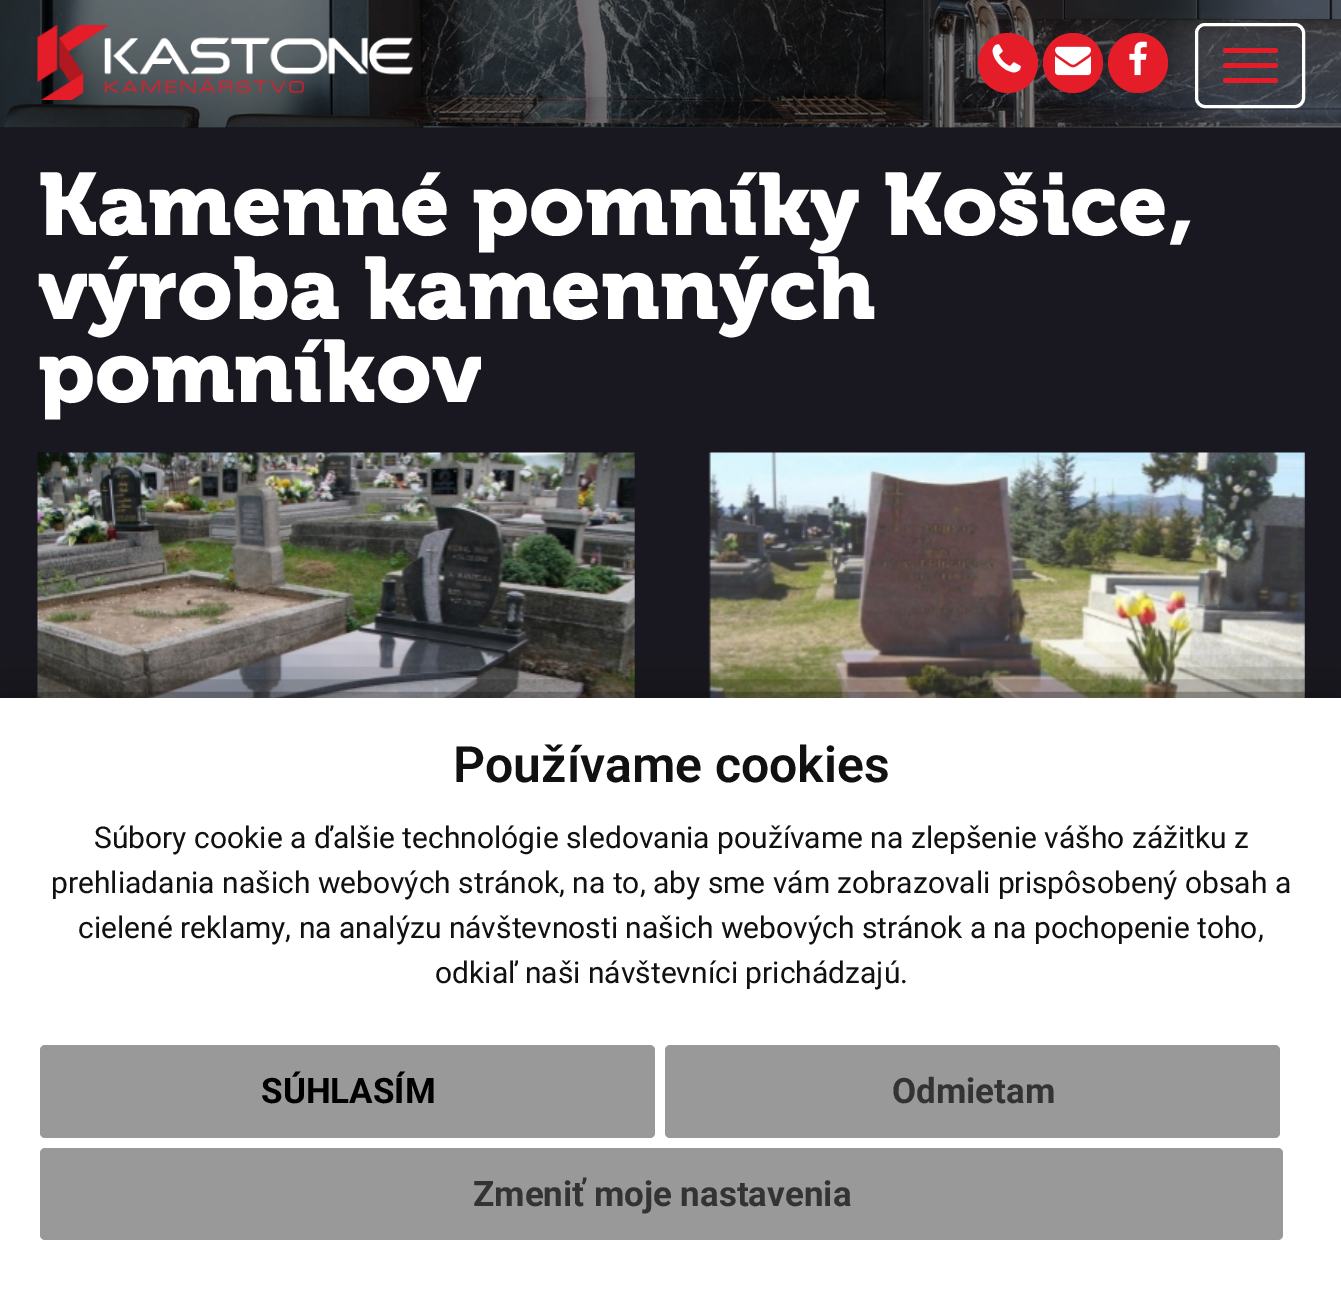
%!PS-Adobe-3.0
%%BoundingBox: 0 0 1341 1300
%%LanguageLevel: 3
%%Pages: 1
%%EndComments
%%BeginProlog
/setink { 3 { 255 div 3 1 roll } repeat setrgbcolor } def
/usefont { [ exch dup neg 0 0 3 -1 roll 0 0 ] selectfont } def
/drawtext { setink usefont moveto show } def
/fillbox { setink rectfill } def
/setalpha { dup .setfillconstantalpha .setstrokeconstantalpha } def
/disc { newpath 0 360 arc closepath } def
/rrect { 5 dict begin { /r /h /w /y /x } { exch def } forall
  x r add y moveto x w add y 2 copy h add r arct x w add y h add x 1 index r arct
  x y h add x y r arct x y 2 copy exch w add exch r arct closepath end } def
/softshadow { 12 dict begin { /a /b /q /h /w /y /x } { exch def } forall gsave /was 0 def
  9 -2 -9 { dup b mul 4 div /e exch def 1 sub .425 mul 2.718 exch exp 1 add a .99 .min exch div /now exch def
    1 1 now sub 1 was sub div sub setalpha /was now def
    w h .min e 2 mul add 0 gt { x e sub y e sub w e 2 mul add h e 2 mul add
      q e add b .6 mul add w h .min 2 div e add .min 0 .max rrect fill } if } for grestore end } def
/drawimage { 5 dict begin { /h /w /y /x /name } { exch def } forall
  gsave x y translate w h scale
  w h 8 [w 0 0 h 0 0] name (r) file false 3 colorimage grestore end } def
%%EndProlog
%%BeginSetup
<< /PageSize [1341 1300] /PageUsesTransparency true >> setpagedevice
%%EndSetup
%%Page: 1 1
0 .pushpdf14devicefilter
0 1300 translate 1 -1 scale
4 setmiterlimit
0 0 1341 1300 25 24 32 fillbox
0 127 1341 1 13 12 16 fillbox
(assets/img1.rgb) 0 0 1341 128 drawimage
(assets/img2.rgb) 37 25 376 75 drawimage
228 29 40 setink
1008 63 30 disc fill
(assets/img3.rgb) 992 44 29 29 drawimage
1073 63 30 disc fill
(assets/img4.rgb) 1055 46 36 30 drawimage
1138 63 30 disc fill
(assets/img5.rgb) 1129 41 18 35 drawimage
255 255 255 setink
3 setlinewidth
1196.5 24.5 107 82 8.5 rrect stroke
228 29 40 setink
1223 48 55 5 2.5 rrect fill
1223 63 55 5 2.5 rrect fill
1223 78 55 5 2.5 rrect fill
(Kamenné pomníky Košice,) 38 235 /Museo-Regular 88 255 255 255 drawtext
(výroba kamenných) 38 319 /Museo-Regular 88 255 255 255 drawtext
(pomníkov) 38 402 /Museo-Regular 88 255 255 255 drawtext
(assets/img6.rgb) 37 452 598 246 drawimage
(assets/img7.rgb) 708 452 597 246 drawimage
17 17 17 setink
0 698 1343 602 0 25 1 softshadow
0 698 1341 602 255 255 255 fillbox
(Používame cookies) 453 782 /Roboto-SemiBold 50 17 17 17 drawtext
(Súbory cookie a ďalšie technológie sledovania používame na zlepšenie vášho zážitku z) 94 848 /Roboto-Regular 30 17 17 17 drawtext
(prehliadania našich webových stránok, na to, aby sme vám zobrazovali prispôsobený obsah a) 51 893 /Roboto-Regular 30 17 17 17 drawtext
(cielené reklamy, na analýzu návštevnosti našich webových stránok a na pochopenie toho,) 78 938 /Roboto-Regular 30 17 17 17 drawtext
(odkiaľ naši návštevníci prichádzajú.) 435 983 /Roboto-Regular 30 17 17 17 drawtext
153 153 153 setink
40 1045 615 93 5 rrect fill
(SÚHLASÍM) 261 1103 /Roboto-Bold 35 0 0 0 drawtext
153 153 153 setink
665 1045 615 93 5 rrect fill
(Odmietam) 892 1103 /Roboto-Bold 35 51 51 51 drawtext
153 153 153 setink
40 1148 1243 92 5 rrect fill
(Zmeniť moje nastavenia) 473 1206 /Roboto-Bold 35 51 51 51 drawtext
.poppdf14devicefilter showpage
%%EOF
